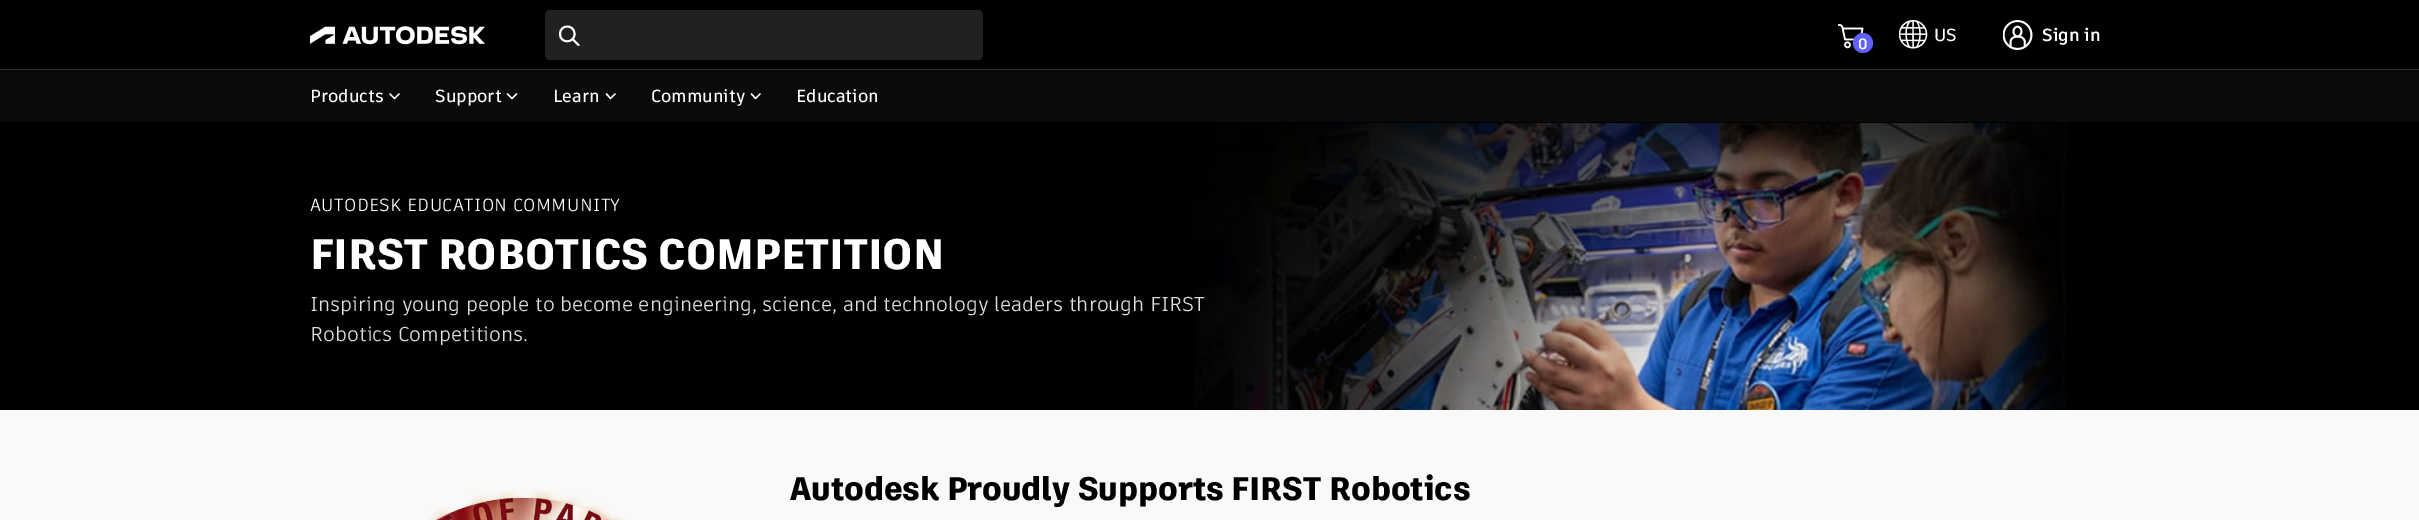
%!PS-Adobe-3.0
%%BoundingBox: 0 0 2419 520
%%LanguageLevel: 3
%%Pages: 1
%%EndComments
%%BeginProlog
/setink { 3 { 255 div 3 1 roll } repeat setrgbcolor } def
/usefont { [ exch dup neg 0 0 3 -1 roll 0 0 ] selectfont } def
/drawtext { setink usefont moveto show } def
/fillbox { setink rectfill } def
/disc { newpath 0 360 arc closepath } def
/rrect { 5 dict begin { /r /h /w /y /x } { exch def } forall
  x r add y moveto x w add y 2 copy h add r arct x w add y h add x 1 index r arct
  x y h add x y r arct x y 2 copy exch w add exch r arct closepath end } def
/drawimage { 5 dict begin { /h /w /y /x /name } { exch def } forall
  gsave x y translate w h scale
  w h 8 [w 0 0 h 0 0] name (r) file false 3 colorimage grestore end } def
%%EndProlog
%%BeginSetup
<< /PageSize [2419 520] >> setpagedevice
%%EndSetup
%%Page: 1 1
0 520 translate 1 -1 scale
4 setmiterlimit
0 0 2419 520 0 0 0 fillbox
0 70 2419 52 10 10 10 fillbox
(assets/img1.rgb) 310 26 175 19 drawimage
33 33 33 setink
545 10 438 50 5 rrect fill
255 255 255 setink
1.9 setlinewidth
1 setlinecap
572.5 39 moveto 578.5 45 lineto 574.5 34 moveto 574.5 43.5 560 44 560 34 curveto 560 24 574.5 24 574.5 34 curveto closepath stroke
(assets/img2.rgb) 1899 20 29 29 drawimage
(US) 1934 41 /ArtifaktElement-SemiBold 17.5 255 255 255 drawtext
(assets/img3.rgb) 1838 24 26 25 drawimage
95 96 255 setink
1863 43 10 disc fill
(0) 1858 49 /ArtifaktElement-Bold 15 255 255 255 drawtext
(assets/img4.rgb) 2003 20 30 30 drawimage
(Sign in) 2042 41 /ArtifaktElement-Bold 17.5 255 255 255 drawtext
0 69 2419 1 51 51 51 fillbox
(Products) 310 102 /ArtifaktElement-SemiBold 17.5 255 255 255 drawtext
1.4 setlinewidth
1 setlinejoin
399 94 moveto 394.5 98.5 lineto 390 94 lineto stroke
(Support) 435 102 /ArtifaktElement-SemiBold 17.5 255 255 255 drawtext
516.5 94 moveto 512 98.5 lineto 507.5 94 lineto stroke
(Learn) 553 102 /ArtifaktElement-SemiBold 17.5 255 255 255 drawtext
615 94 moveto 610.5 98.5 lineto 606.5 94 lineto stroke
(Community) 651 102 /ArtifaktElement-SemiBold 17.5 255 255 255 drawtext
760 94 moveto 755.5 98.5 lineto 751.5 94 lineto stroke
(Education) 796 102 /ArtifaktElement-SemiBold 17.5 255 255 255 drawtext
(assets/img5.rgb) 1194 123 873 287 drawimage
/ArtifaktElement-Regular 17.5 usefont
310 211 moveto 0.35 0 (AUTODESK EDUCATION COMMUNITY) ashow
(FIRST ROBOTICS COMPETITION) 310 269 /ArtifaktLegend-ExtraBold 42.5 255 255 255 drawtext
(Inspiring young people to become engineering, science, and technology leaders through FIRST) 310 311 /ArtifaktElement-Regular 20 222 222 222 drawtext
(Robotics Competitions.) 310 341 /ArtifaktElement-Regular 20 222 222 222 drawtext
0 410 2419 110 249 249 249 fillbox
(assets/img6.rgb) 428 489 197 31 drawimage
(Autodesk Proudly Supports FIRST Robotics) 790 500 /ArtifaktLegend-ExtraBold 32.5 0 0 0 drawtext
showpage
%%EOF
